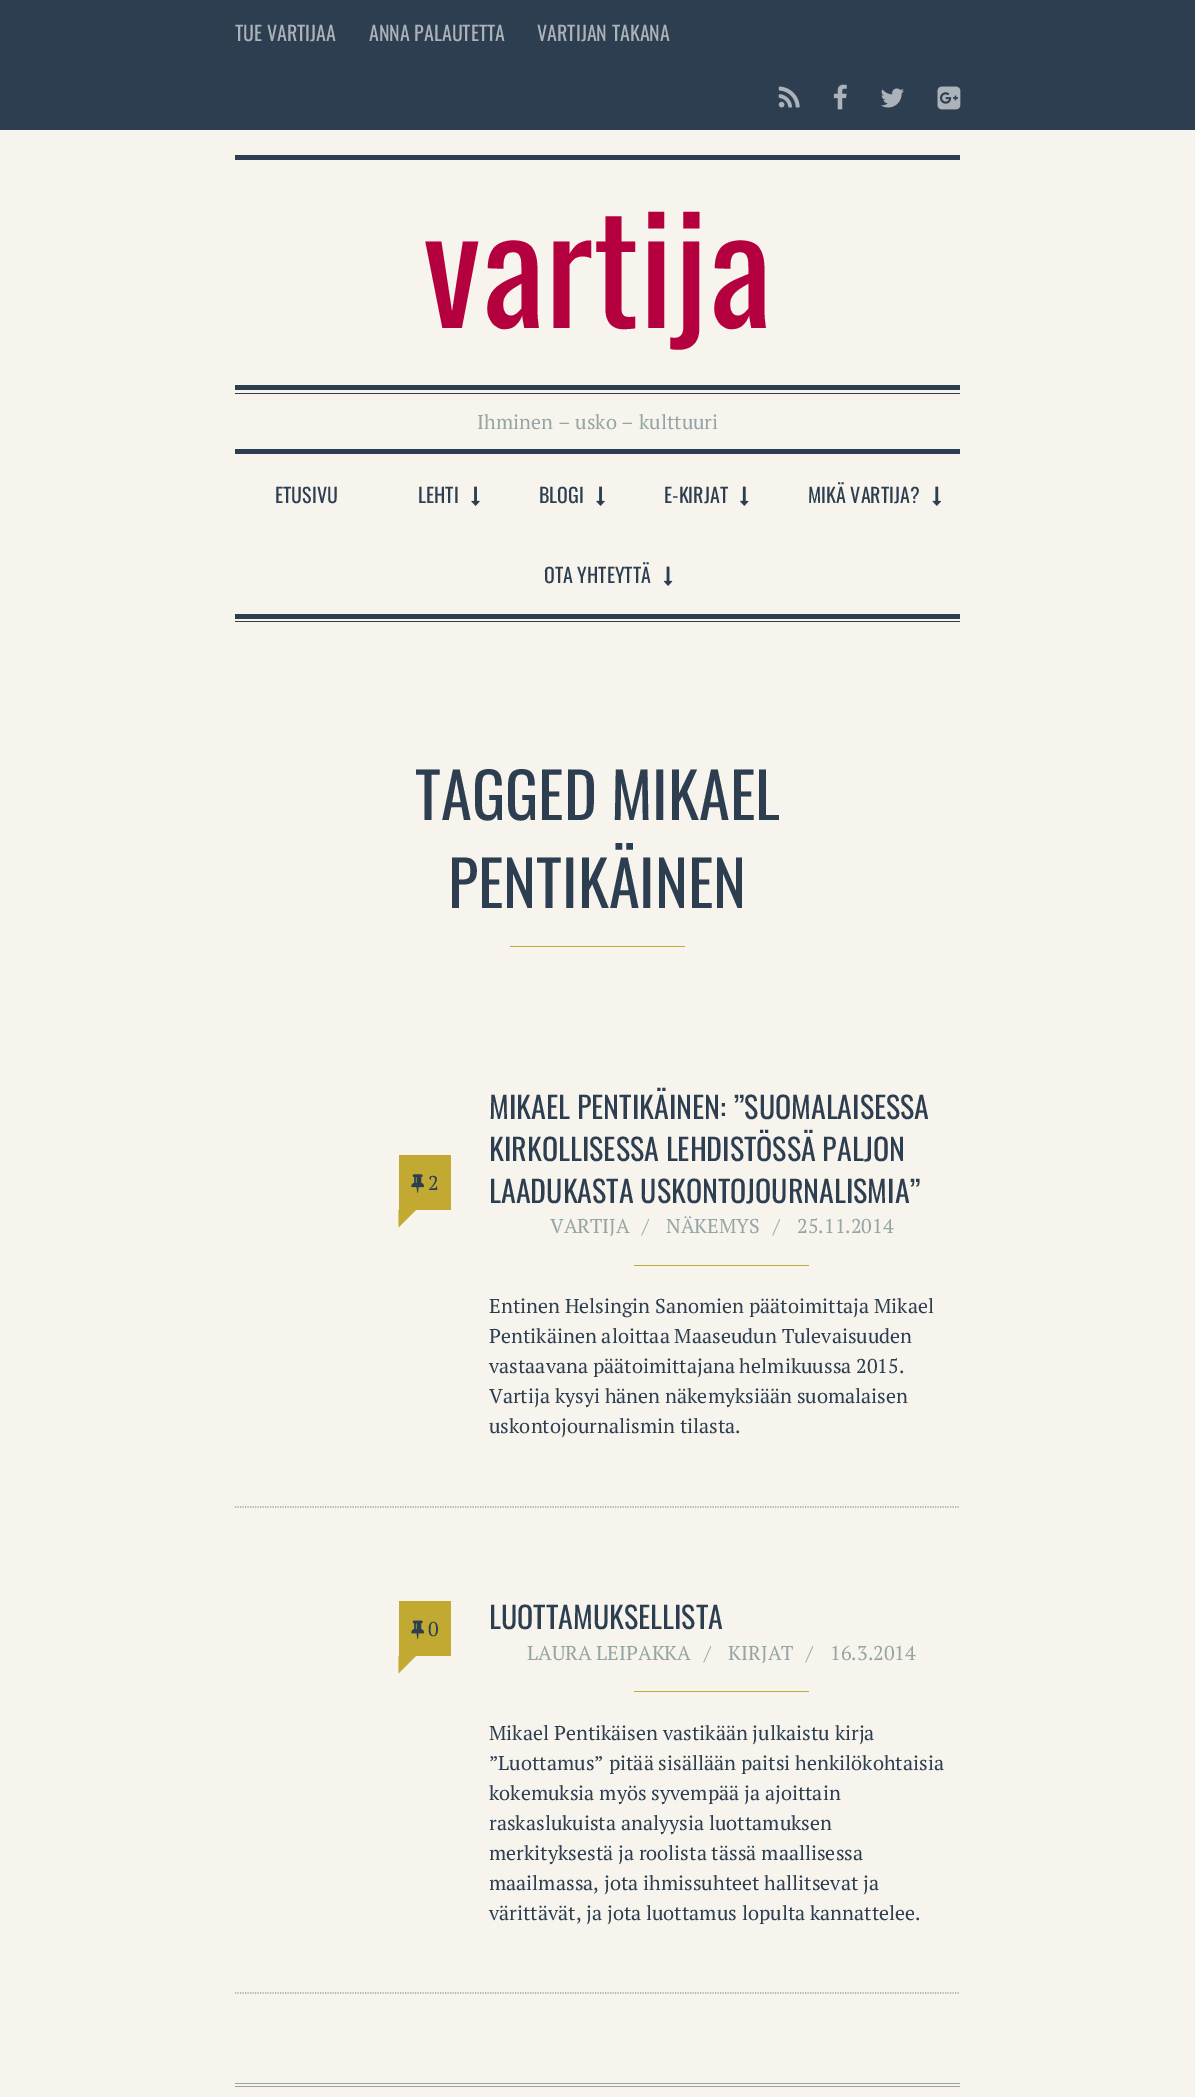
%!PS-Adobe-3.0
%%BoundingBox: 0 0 1195 2097
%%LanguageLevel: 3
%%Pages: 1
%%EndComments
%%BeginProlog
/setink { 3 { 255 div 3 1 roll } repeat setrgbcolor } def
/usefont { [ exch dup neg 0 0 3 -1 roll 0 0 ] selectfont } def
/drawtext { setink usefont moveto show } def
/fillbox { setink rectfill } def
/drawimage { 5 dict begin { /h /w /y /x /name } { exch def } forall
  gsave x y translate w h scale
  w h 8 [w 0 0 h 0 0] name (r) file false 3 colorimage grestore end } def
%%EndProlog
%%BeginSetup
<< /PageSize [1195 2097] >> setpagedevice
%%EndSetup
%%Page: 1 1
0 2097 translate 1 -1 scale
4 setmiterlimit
0 0 1195 2097 247 244 237 fillbox
0 0 1195 130 44 62 80 fillbox
(TUE VARTIJAA) 235 41 /Oswald-Regular 20 171 178 185 drawtext
(ANNA PALAUTETTA) 369 41 /Oswald-Regular 20 171 178 185 drawtext
(VARTIJAN TAKANA) 537 41 /Oswald-Regular 20 171 178 185 drawtext
(assets/img1.rgb) 778 86 22 22 drawimage
(assets/img2.rgb) 833 84 14 26 drawimage
(assets/img3.rgb) 881 88 23 20 drawimage
(assets/img4.rgb) 937 86 24 24 drawimage
235 155 725 5 44 62 80 fillbox
235 449 725 5 44 62 80 fillbox
235 385 725 5 44 62 80 fillbox
(vartija) 423 328 /Oswald-Regular 150 180 0 63 drawtext
235 393 725 1 44 62 80 fillbox
(Ihminen – usko – kulttuuri) 477 429 /PTSerif-Regular 20 149 165 166 drawtext
235 621 725 1 44 62 80 fillbox
235 614 725 5 44 62 80 fillbox
(ETUSIVU) 275 503 /Oswald-Regular 20 44 62 80 drawtext
(LEHTI) 418 503 /Oswald-Regular 20 44 62 80 drawtext
(assets/img5.rgb) 471 486 9 20 drawimage
(BLOGI) 539 503 /Oswald-Regular 20 44 62 80 drawtext
(assets/img5.rgb) 596 486 9 20 drawimage
(E-KIRJAT) 664 503 /Oswald-Regular 20 44 62 80 drawtext
(assets/img6.rgb) 740 486 9 20 drawimage
(MIKÄ VARTIJA?) 808 503 /Oswald-Regular 20 44 62 80 drawtext
(assets/img7.rgb) 932 486 9 20 drawimage
(OTA YHTEYTTÄ) 544 583 /Oswald-Regular 20 44 62 80 drawtext
(assets/img8.rgb) 663 566 10 20 drawimage
(TAGGED MIKAEL) 415 820 /Oswald-Regular 62.5 44 62 80 drawtext
(PENTIKÄINEN) 448 908 /Oswald-Regular 62.5 44 62 80 drawtext
510 946 175 1 193 169 50 fillbox
149 165 166 setink
1.2 setlinewidth
[1.25 1.25] 0 setdash
235 1507 moveto 960 1507 lineto stroke
399 1155 52 55 193 169 50 fillbox
(assets/img9.rgb) 411 1174 14 19 drawimage
(2) 428 1190 /PTSerif-Regular 20 44 62 80 drawtext
193 169 50 setink
416 1210 moveto 398.5 1227.5 lineto 398.5 1210 lineto closepath fill
(MIKAEL PENTIKÄINEN: ”SUOMALAISESSA) 489 1119 /Oswald-Regular 30 44 62 80 drawtext
(KIRKOLLISESSA LEHDISTÖSSÄ PALJON) 489 1161 /Oswald-Regular 30 44 62 80 drawtext
(LAADUKASTA USKONTOJOURNALISMIA”) 489 1203 /Oswald-Regular 30 44 62 80 drawtext
(VARTIJA) 550 1233 /PTSerif-Regular 20 149 165 166 drawtext
(/) 642 1233 /PTSerif-Regular 20 149 165 166 drawtext
(NÄKEMYS) 666 1233 /PTSerif-Regular 20 149 165 166 drawtext
(/) 773 1233 /PTSerif-Regular 20 149 165 166 drawtext
(25.11.2014) 797 1233 /PTSerif-Regular 20 149 165 166 drawtext
634 1265 175 1 193 169 50 fillbox
(Entinen Helsingin Sanomien päätoimittaja Mikael) 489 1313 /PTSerif-Regular 20 44 62 80 drawtext
(Pentikäinen aloittaa Maaseudun Tulevaisuuden) 489 1343 /PTSerif-Regular 20 44 62 80 drawtext
(vastaavana päätoimittajana helmikuussa 2015.) 489 1373 /PTSerif-Regular 20 44 62 80 drawtext
(Vartija kysyi hänen näkemyksiään suomalaisen) 489 1403 /PTSerif-Regular 20 44 62 80 drawtext
(uskontojournalismin tilasta.) 489 1433 /PTSerif-Regular 20 44 62 80 drawtext
149 165 166 setink
235 1993 moveto 960 1993 lineto stroke
399 1601 52 55 193 169 50 fillbox
(assets/img10.rgb) 411 1620 14 20 drawimage
(0) 428 1636 /PTSerif-Regular 20 44 62 80 drawtext
193 169 50 setink
416 1656 moveto 398.5 1673.5 lineto 398.5 1656 lineto closepath fill
(LUOTTAMUKSELLISTA) 489 1629 /Oswald-Regular 30 44 62 80 drawtext
(LAURA LEIPAKKA) 527 1660 /PTSerif-Regular 20 149 165 166 drawtext
(/) 704 1660 /PTSerif-Regular 20 149 165 166 drawtext
(KIRJAT) 728 1660 /PTSerif-Regular 20 149 165 166 drawtext
(/) 806 1660 /PTSerif-Regular 20 149 165 166 drawtext
(16.3.2014) 830 1660 /PTSerif-Regular 20 149 165 166 drawtext
634 1691 175 1 193 169 50 fillbox
(Mikael Pentikäisen vastikään julkaistu kirja) 489 1740 /PTSerif-Regular 20 44 62 80 drawtext
(”Luottamus” pitää sisällään paitsi henkilökohtaisia) 489 1770 /PTSerif-Regular 20 44 62 80 drawtext
(kokemuksia myös syvempää ja ajoittain) 489 1800 /PTSerif-Regular 20 44 62 80 drawtext
(raskaslukuista analyysia luottamuksen) 489 1830 /PTSerif-Regular 20 44 62 80 drawtext
(merkityksestä ja roolista tässä maallisessa) 489 1860 /PTSerif-Regular 20 44 62 80 drawtext
(maailmassa, jota ihmissuhteet hallitsevat ja) 489 1890 /PTSerif-Regular 20 44 62 80 drawtext
(värittävät, ja jota luottamus lopulta kannattelee.) 489 1920 /PTSerif-Regular 20 44 62 80 drawtext
235 2083 725 1 149 165 166 fillbox
235 2086 725 1 149 165 166 fillbox
showpage
%%EOF
